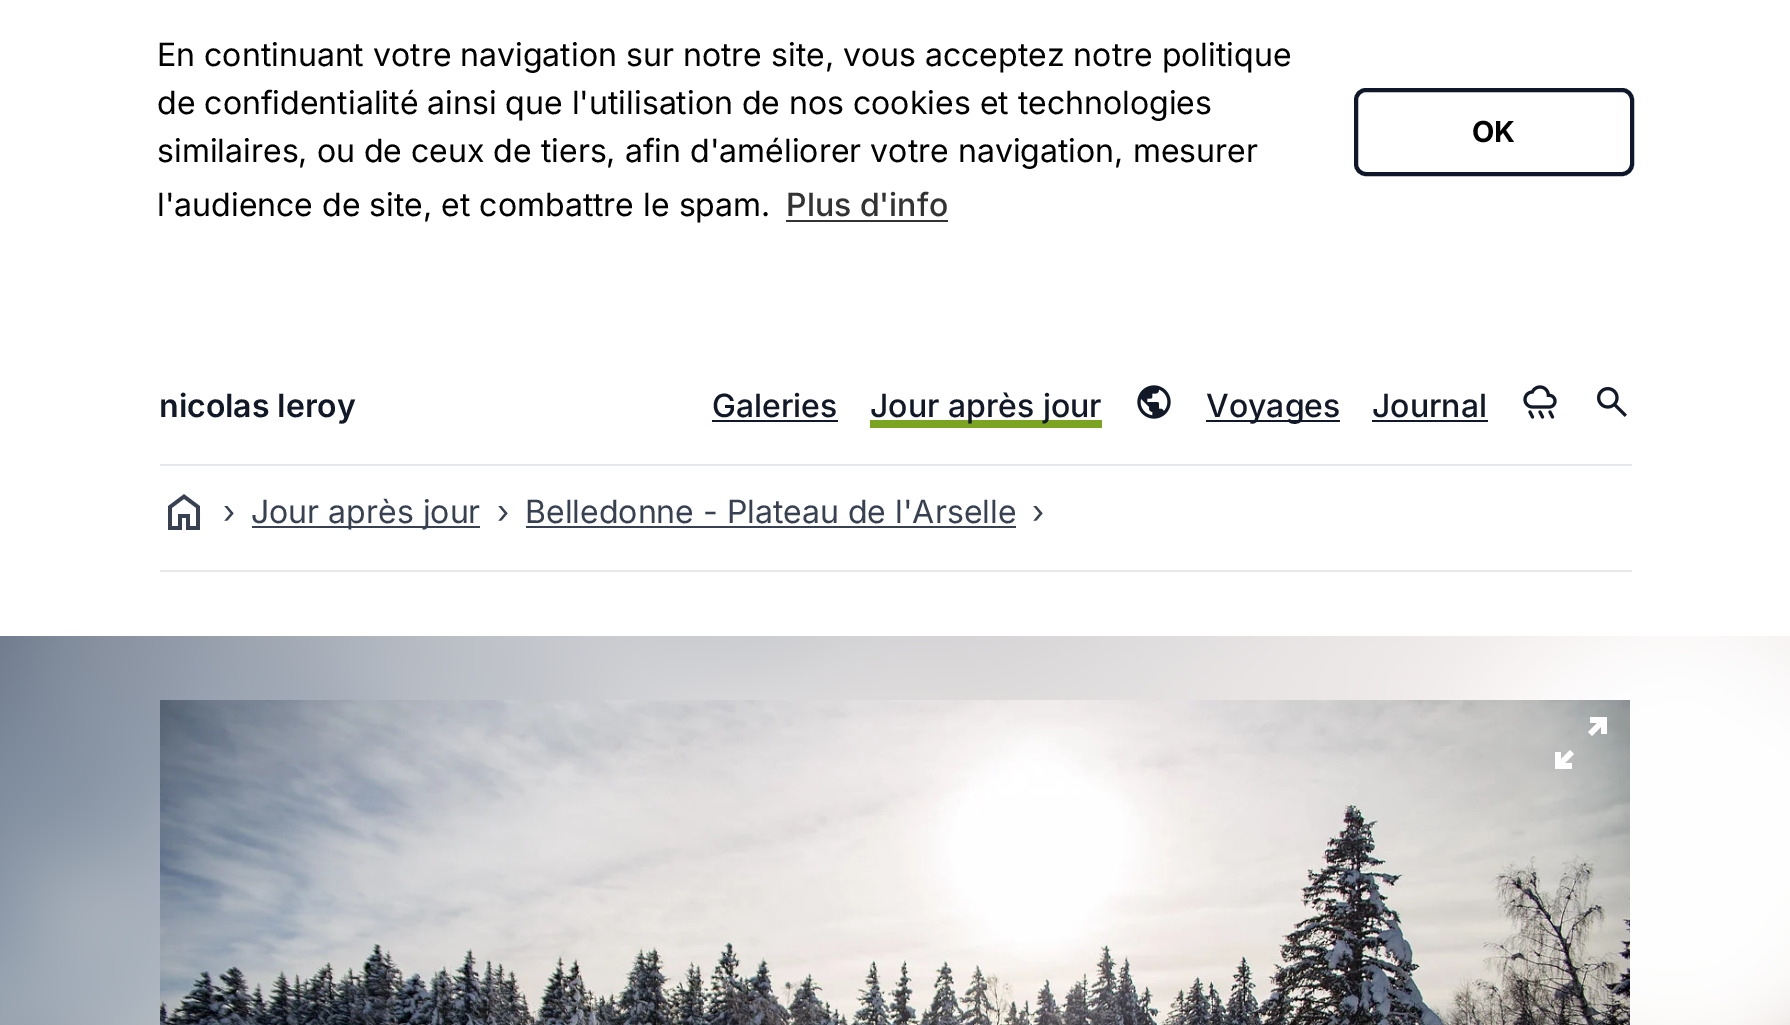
%!PS-Adobe-3.0
%%BoundingBox: 0 0 1790 1025
%%LanguageLevel: 3
%%Pages: 1
%%EndComments
%%BeginProlog
/setink { 3 { 255 div 3 1 roll } repeat setrgbcolor } def
/usefont { [ exch dup neg 0 0 3 -1 roll 0 0 ] selectfont } def
/drawtext { setink usefont moveto show } def
/fillbox { setink rectfill } def
/rrect { 5 dict begin { /r /h /w /y /x } { exch def } forall
  x r add y moveto x w add y 2 copy h add r arct x w add y h add x 1 index r arct
  x y h add x y r arct x y 2 copy exch w add exch r arct closepath end } def
/drawimage { 5 dict begin { /h /w /y /x /name } { exch def } forall
  gsave x y translate w h scale
  w h 8 [w 0 0 h 0 0] name (r) file false 3 colorimage grestore end } def
%%EndProlog
%%BeginSetup
<< /PageSize [1790 1025] >> setpagedevice
%%EndSetup
%%Page: 1 1
0 1025 translate 1 -1 scale
4 setmiterlimit
0 0 1790 1025 255 255 255 fillbox
(En continuant votre navigation sur notre site, vous acceptez notre politique) 157 66 /Inter-Regular 32 0 0 0 drawtext
(de confidentialité ainsi que l'utilisation de nos cookies et technologies) 157 114 /Inter-Regular 32 0 0 0 drawtext
(similaires, ou de ceux de tiers, afin d'améliorer votre navigation, mesurer) 157 162 /Inter-Regular 32 0 0 0 drawtext
(l'audience de site, et combattre le spam.) 157 216 /Inter-Regular 32 0 0 0 drawtext
(Plus d'info) 786 216 /Inter-Medium 32 51 51 51 drawtext
786 220 162 2 51 51 51 fillbox
15 23 42 setink
4 setlinewidth
1356 90 276 84 10 rrect stroke
(OK) 1472 142 /Inter-Bold 29 0 0 0 drawtext
(nicolas leroy) 159 417 /Inter-SemiBold 32 17 24 39 drawtext
(Galeries) 712 417 /Inter-Medium 32 17 24 39 drawtext
712 420 126 2 17 24 39 fillbox
870 420 232 8 122 164 33 fillbox
(Jour après jour) 870 417 /Inter-Medium 32 17 24 39 drawtext
(assets/img1.rgb) 1137 385 34 34 drawimage
1206 420 134 2 17 24 39 fillbox
(Voyages) 1206 417 /Inter-Medium 32 17 24 39 drawtext
(Journal) 1372 417 /Inter-Medium 32 17 24 39 drawtext
1372 420 116 2 17 24 39 fillbox
(assets/img2.rgb) 1523 385 34 34 drawimage
(assets/img3.rgb) 1597 387 30 30 drawimage
160 464 1472 2 229 231 235 fillbox
(assets/img4.rgb) 168 494 32 36 drawimage
(›) 223 523 /Inter-Regular 32 55 65 81 drawtext
252 526 228 2 55 65 81 fillbox
(Jour après jour) 251 523 /Inter-Regular 32 55 65 81 drawtext
(›) 497 523 /Inter-Regular 32 55 65 81 drawtext
(Belledonne - Plateau de l'Arselle) 525 523 /Inter-Regular 32 55 65 81 drawtext
526 526 490 2 55 65 81 fillbox
(›) 1032 523 /Inter-Regular 32 55 65 81 drawtext
160 570 1472 2 229 231 235 fillbox
(assets/img5.rgb) 0 636 1790 389 drawimage
(assets/img6.rgb) 160 700 1470 325 drawimage
255 255 255 setink
1555 769 moveto 1555 752 lineto 1561 752 lineto 1561 759 lineto 1570 750 lineto 1574 754 lineto 1565 763 lineto 1572 763 lineto 1572 769 lineto closepath 1592 736 moveto 1588 732 lineto 1597 723 lineto 1590 723 lineto 1590 717 lineto 1607 717 lineto 1607 734 lineto 1601 734 lineto 1601 727 lineto closepath fill
showpage
%%EOF
